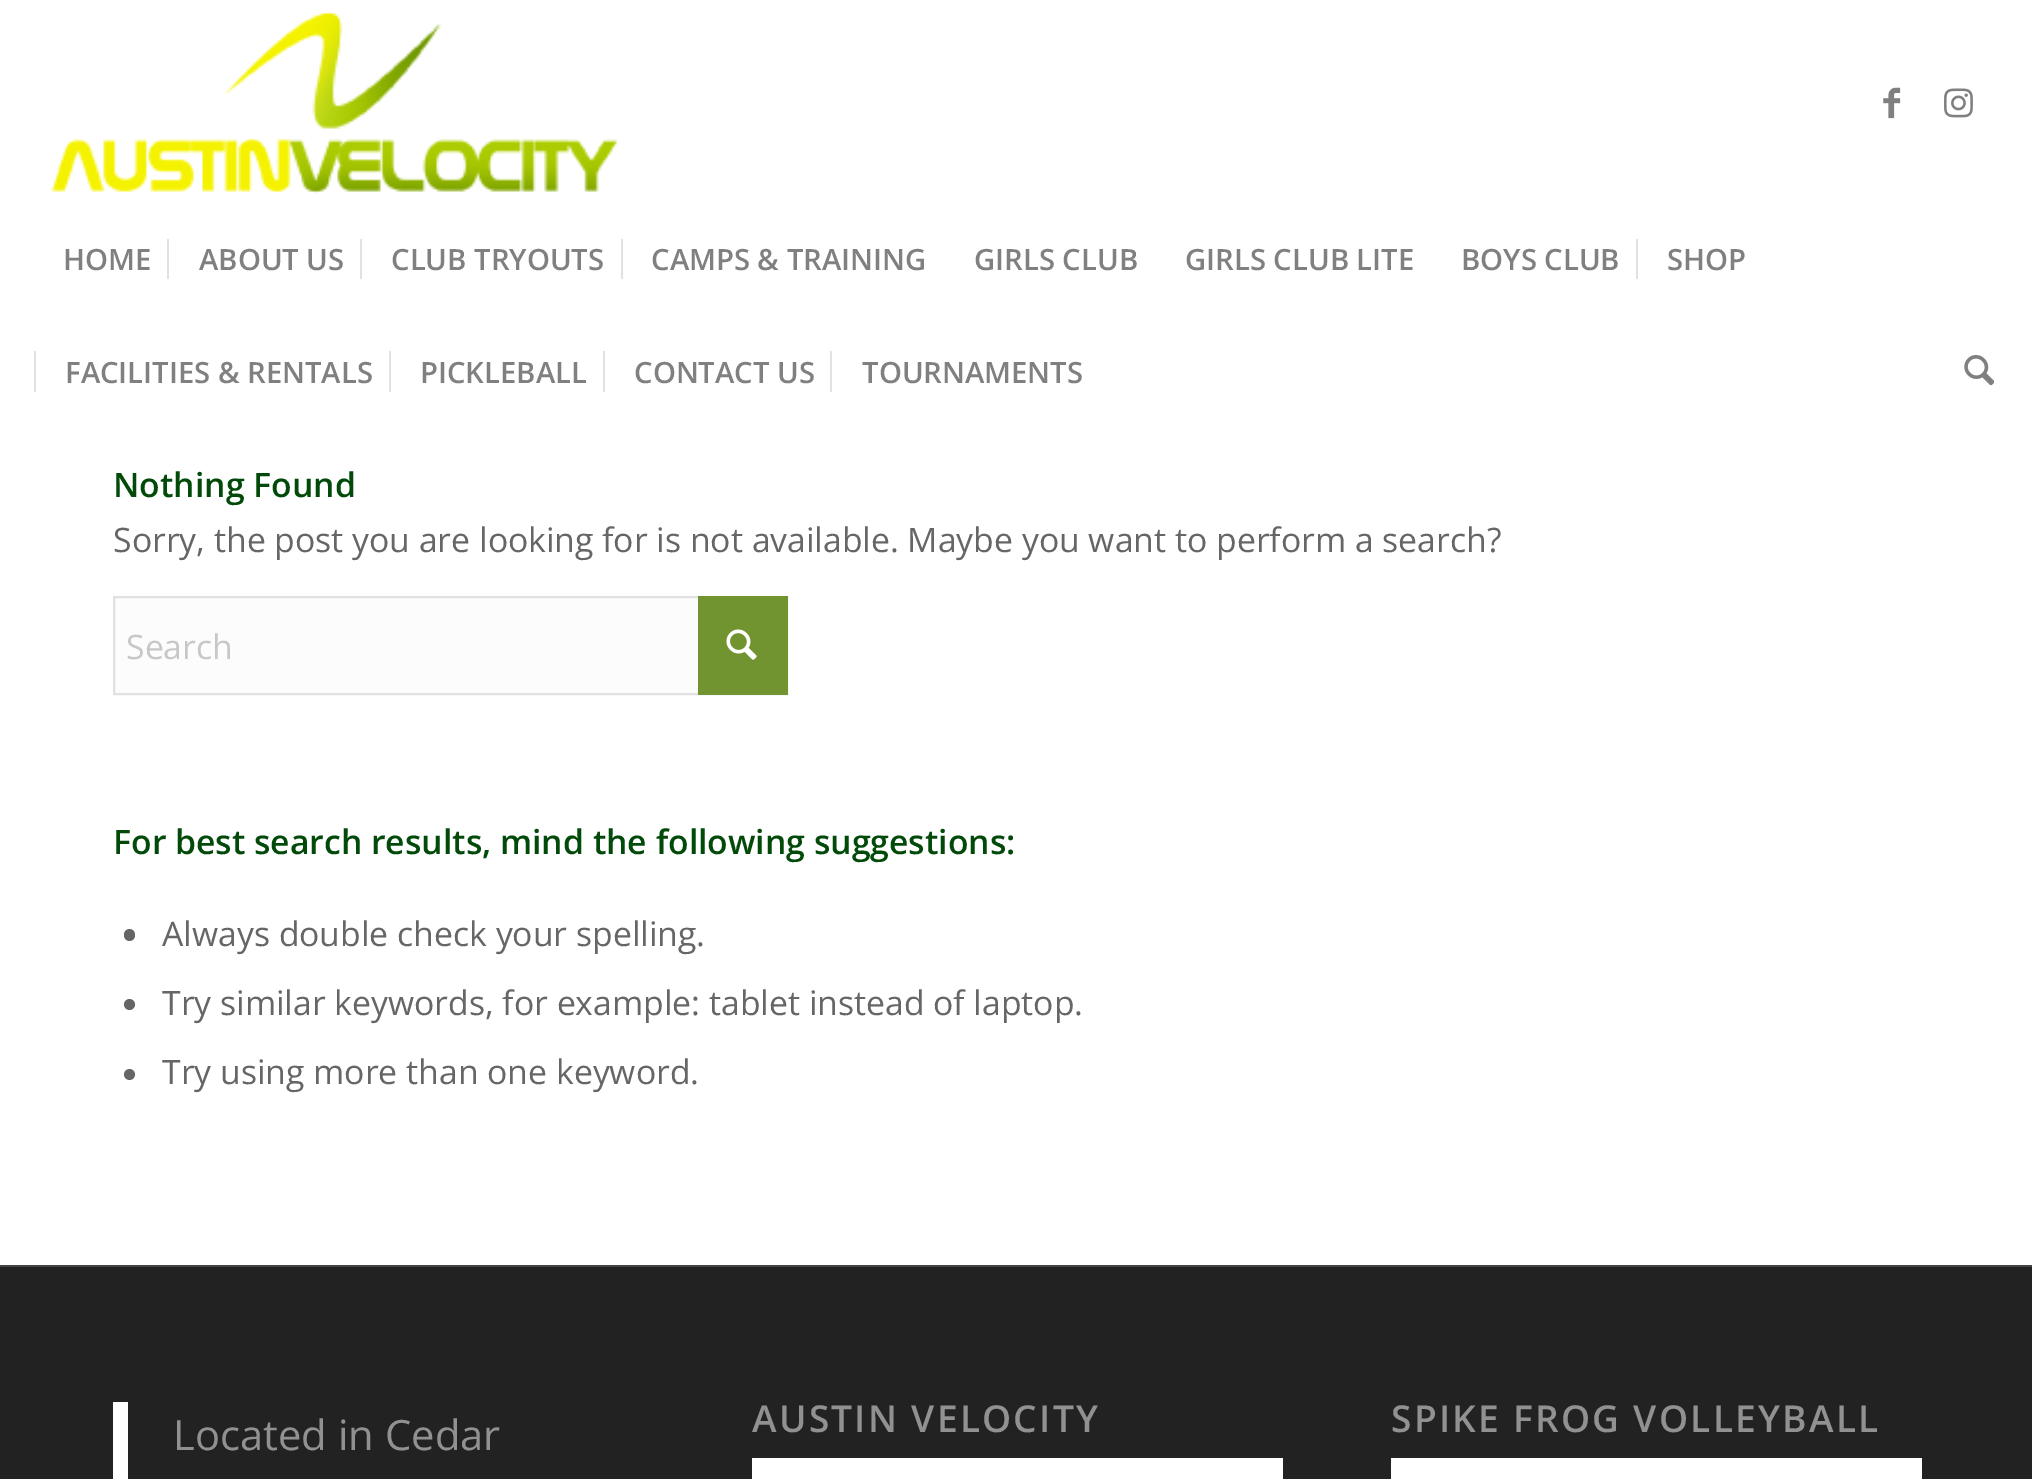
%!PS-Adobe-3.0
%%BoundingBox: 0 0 2032 1479
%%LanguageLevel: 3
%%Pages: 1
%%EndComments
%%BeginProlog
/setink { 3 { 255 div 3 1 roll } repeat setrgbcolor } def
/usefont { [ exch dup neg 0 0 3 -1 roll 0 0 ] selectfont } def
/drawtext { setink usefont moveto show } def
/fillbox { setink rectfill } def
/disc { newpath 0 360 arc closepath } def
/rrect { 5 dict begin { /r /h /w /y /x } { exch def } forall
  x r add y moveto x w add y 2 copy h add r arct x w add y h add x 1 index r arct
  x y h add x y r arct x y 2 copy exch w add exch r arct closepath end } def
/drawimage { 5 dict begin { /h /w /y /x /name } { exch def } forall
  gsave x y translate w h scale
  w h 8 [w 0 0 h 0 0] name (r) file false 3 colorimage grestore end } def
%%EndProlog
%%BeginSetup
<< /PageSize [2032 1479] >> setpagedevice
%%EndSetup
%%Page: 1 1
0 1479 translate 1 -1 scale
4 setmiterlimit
0 0 2032 1479 255 255 255 fillbox
(assets/img1.rgb) 51 11 568 183 drawimage
(assets/img2.rgb) 1883 87 18 32 drawimage
(assets/img3.rgb) 1944 88 29 30 drawimage
(HOME) 63 270 /OpenSans-SemiBold 29.25 128 128 128 drawtext
(ABOUT US) 199 270 /OpenSans-SemiBold 29.25 128 128 128 drawtext
167 239 2 40 225 225 225 fillbox
(CLUB TRYOUTS) 391 270 /OpenSans-SemiBold 29.25 128 128 128 drawtext
360 239 2 40 225 225 225 fillbox
(CAMPS & TRAINING) 651 270 /OpenSans-SemiBold 29.25 128 128 128 drawtext
621 239 2 40 225 225 225 fillbox
(GIRLS CLUB) 974 270 /OpenSans-SemiBold 29.25 128 128 128 drawtext
(GIRLS CLUB LITE) 1185 270 /OpenSans-SemiBold 29.25 128 128 128 drawtext
(BOYS CLUB) 1461 270 /OpenSans-SemiBold 29.25 128 128 128 drawtext
(SHOP) 1667 270 /OpenSans-SemiBold 29.25 128 128 128 drawtext
1636 239 2 40 225 225 225 fillbox
(FACILITIES & RENTALS) 65 383 /OpenSans-SemiBold 29.25 128 128 128 drawtext
34 351 2 41 225 225 225 fillbox
(PICKLEBALL) 420 383 /OpenSans-SemiBold 29.25 128 128 128 drawtext
389 351 2 41 225 225 225 fillbox
(CONTACT US) 634 383 /OpenSans-SemiBold 29.25 128 128 128 drawtext
603 351 2 41 225 225 225 fillbox
(TOURNAMENTS) 862 383 /OpenSans-SemiBold 29.25 128 128 128 drawtext
830 351 2 41 225 225 225 fillbox
(assets/img4.rgb) 1964 355 30 31 drawimage
(Nothing Found) 113 497 /OpenSans-SemiBold 33.75 2 74 9 drawtext
(Sorry, the post you are looking for is not available. Maybe you want to perform a search?) 113 552 /OpenSans-Regular 33.75 102 102 102 drawtext
115 598 583 95 252 252 252 fillbox
225 225 225 setink
2 setlinewidth
114 597 673 97 rectstroke
698 596 90 99 113 148 48 fillbox
(Search) 126 659 /OpenSans-Regular 33.75 199 199 199 drawtext
(assets/img5.rgb) 726 629 31 31 drawimage
(For best search results, mind the following suggestions:) 113 854 /OpenSans-SemiBold 33.75 2 74 9 drawtext
102 102 102 setink
124 929 11 12 5.5 rrect fill
(Always double check your spelling.) 162 946 /OpenSans-Regular 33.75 102 102 102 drawtext
129.5 1004.5 5.5 disc fill
(Try similar keywords, for example: tablet instead of laptop.) 162 1015 /OpenSans-Regular 33.75 102 102 102 drawtext
129.5 1074.5 5.5 disc fill
(Try using more than one keyword.) 162 1084 /OpenSans-Regular 33.75 102 102 102 drawtext
0 1267 2032 212 34 34 34 fillbox
0 1265 2032 2 68 68 68 fillbox
113 1402 15 77 255 255 255 fillbox
(Located in Cedar) 173 1450 /OpenSans-Regular 41.75 145 145 145 drawtext
/OpenSans-SemiBold 37.1 usefont
752 1432 moveto 2.25 0 (AUSTIN VELOCITY) ashow
752 1458 531 21 255 255 255 fillbox
145 145 145 setink
1391 1432 moveto 2.25 0 (SPIKE FROG VOLLEYBALL) ashow
1391 1458 531 21 255 255 255 fillbox
showpage
%%EOF
